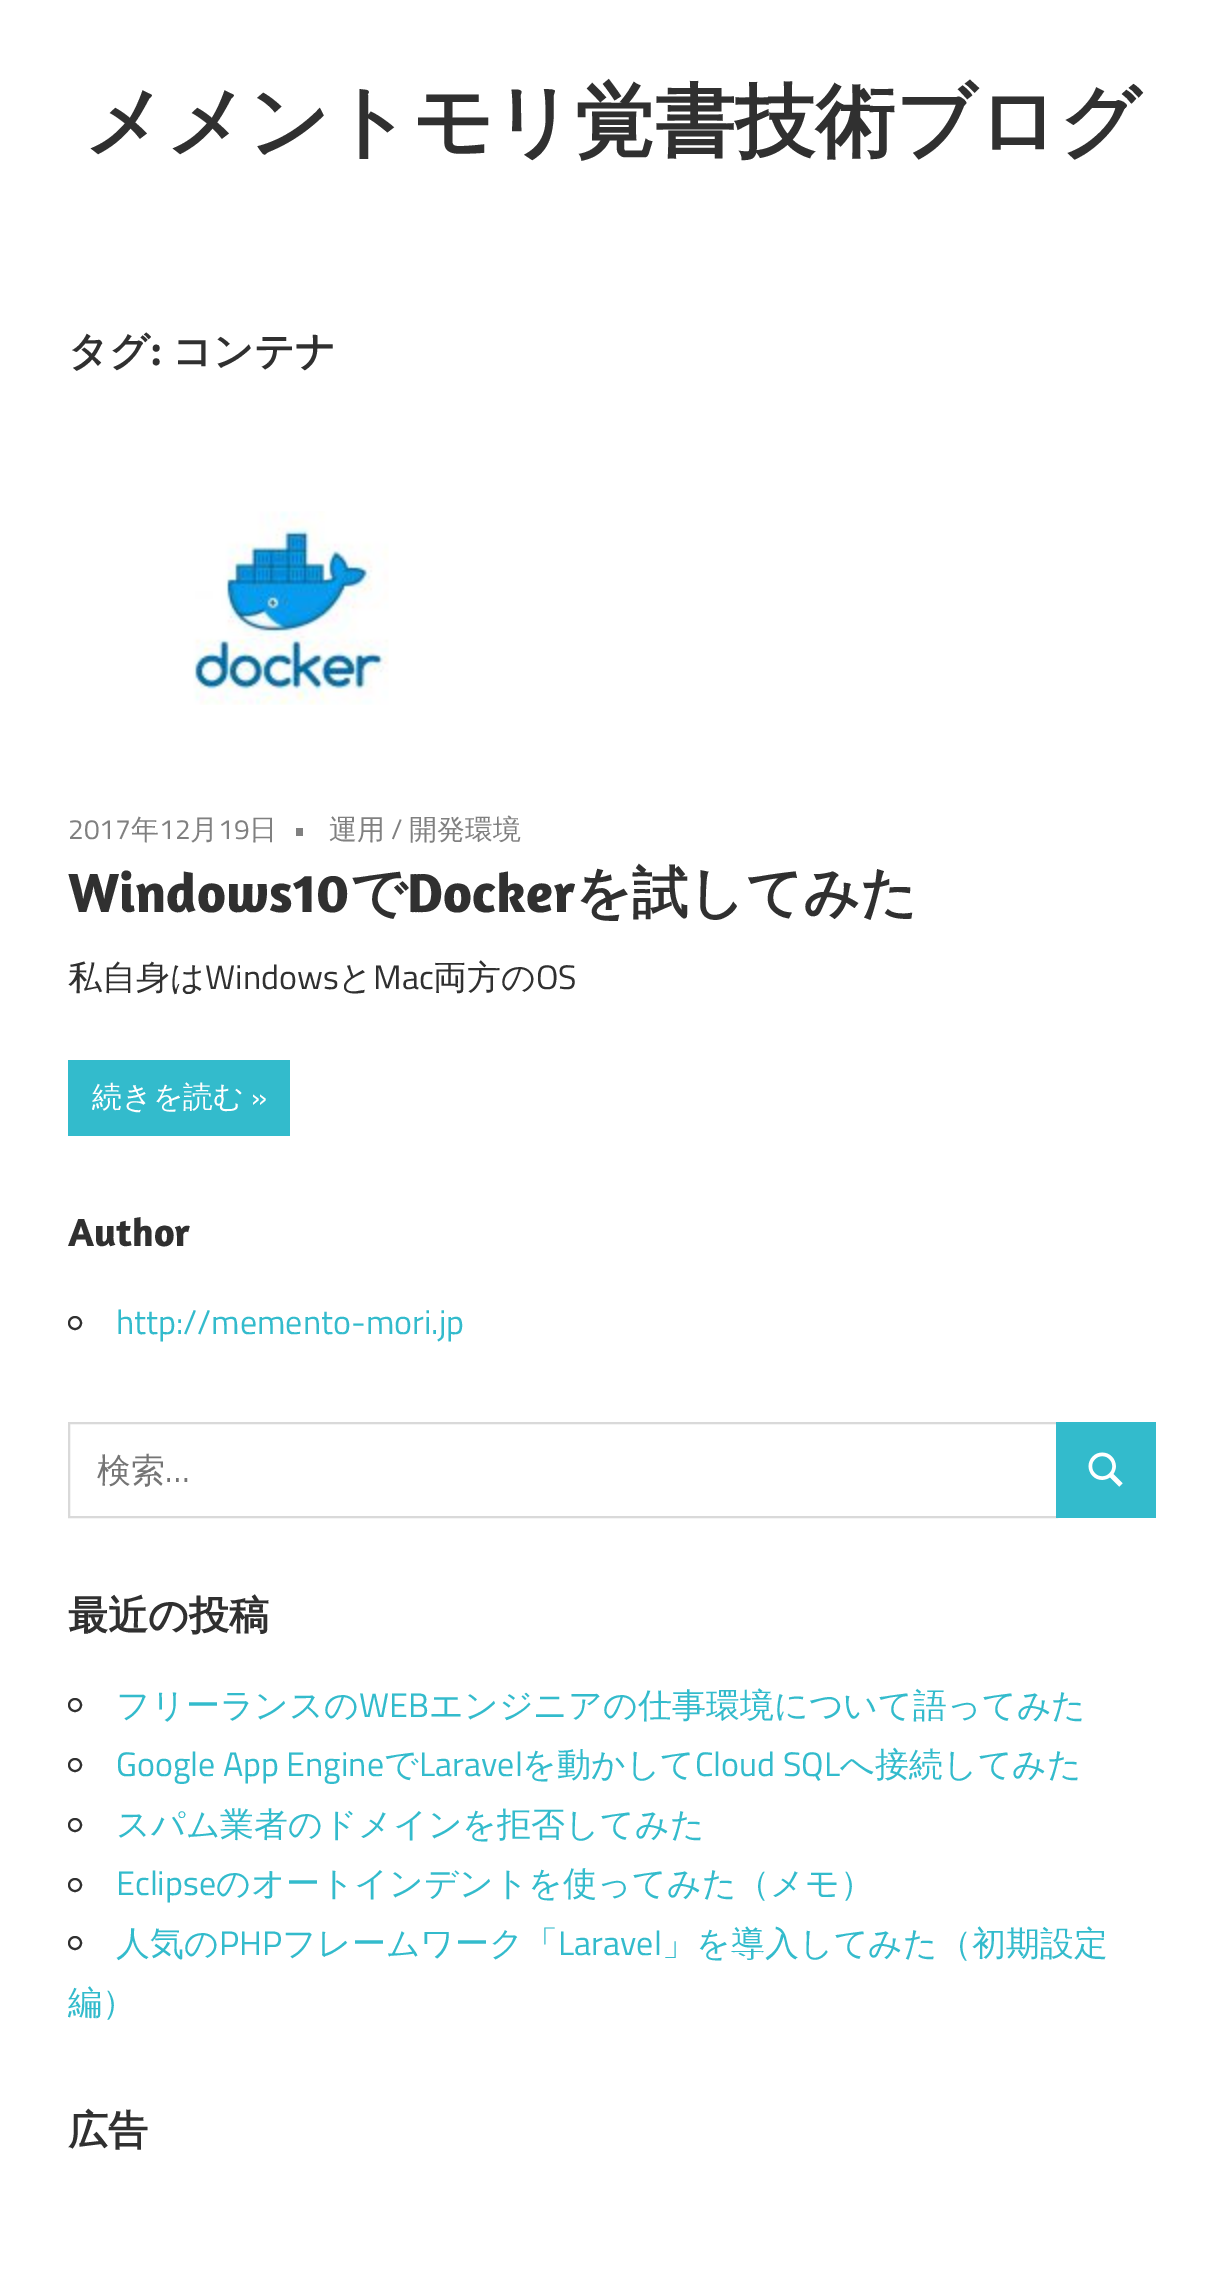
%!PS-Adobe-3.0
%%BoundingBox: 0 0 1223 2282
%%LanguageLevel: 3
%%Pages: 1
%%EndComments
%%BeginProlog
/setink { 3 { 255 div 3 1 roll } repeat setrgbcolor } def
/usefont { [ exch dup neg 0 0 3 -1 roll 0 0 ] selectfont } def
/drawtext { setink usefont moveto show } def
/fillbox { setink rectfill } def
/disc { newpath 0 360 arc closepath } def
/drawimage { 5 dict begin { /h /w /y /x /name } { exch def } forall
  gsave x y translate w h scale
  w h 8 [w 0 0 h 0 0] name (r) file false 3 colorimage grestore end } def
%%EndProlog
%%BeginSetup
<< /PageSize [1223 2282] >> setpagedevice
%%EndSetup
%%Page: 1 1
0 2282 translate 1 -1 scale
4 setmiterlimit
0 0 1223 2282 255 255 255 fillbox
(メメントモリ覚書技術ブログ) 84 149 /WenQuanYiZenHei-Bold 80 48 48 48 drawtext
(タグ) 68 365 /WenQuanYiZenHei-Bold 40 48 48 48 drawtext
(:) 150 365 /Amaranth-Bold 40 48 48 48 drawtext
(コンテナ) 172 365 /WenQuanYiZenHei-Bold 40 48 48 48 drawtext
(assets/img1.rgb) 193 511 196 194 drawimage
(2017) 68 839 /TitilliumWeb-Regular 28 128 128 128 drawtext
(年) 131 839 /WenQuanYiZenHei-Medium 28 128 128 128 drawtext
(12) 159 839 /TitilliumWeb-Regular 28 128 128 128 drawtext
(月) 190 839 /WenQuanYiZenHei-Medium 28 128 128 128 drawtext
(19) 218 839 /TitilliumWeb-Regular 28 128 128 128 drawtext
(日) 249 839 /WenQuanYiZenHei-Medium 28 128 128 128 drawtext
(•) 293 839 /TitilliumWeb-Regular 28 128 128 128 drawtext
(運用) 329 839 /WenQuanYiZenHei-Medium 28 128 128 128 drawtext
(/) 391 839 /TitilliumWeb-Regular 28 128 128 128 drawtext
(開発環境) 409 839 /WenQuanYiZenHei-Medium 28 128 128 128 drawtext
(Windows10) 68 912 /Amaranth-Bold 56 48 48 48 drawtext
(で) 350 912 /WenQuanYiZenHei-Bold 56 48 48 48 drawtext
(Docker) 407 912 /Amaranth-Bold 56 48 48 48 drawtext
(を試してみた) 575 912 /WenQuanYiZenHei-Bold 56 48 48 48 drawtext
(私自身は) 68 989 /WenQuanYiZenHei-Medium 34 48 48 48 drawtext
(Windows) 205 989 /TitilliumWeb-Regular 34 48 48 48 drawtext
(と) 338 989 /WenQuanYiZenHei-Medium 34 48 48 48 drawtext
(Mac) 373 989 /TitilliumWeb-Regular 34 48 48 48 drawtext
(両方の) 433 989 /WenQuanYiZenHei-Medium 34 48 48 48 drawtext
(OS) 536 989 /TitilliumWeb-Regular 34 48 48 48 drawtext
68 1060 222 76 51 187 204 fillbox
(続きを読む) 92 1107 /WenQuanYiZenHei-Medium 30 255 255 255 drawtext
(») 251 1107 /TitilliumWeb-Regular 30 255 255 255 drawtext
(Author) 68 1246 /Amaranth-Bold 40 48 48 48 drawtext
2 setlinewidth
75 1323 6 disc stroke
(http://memento-mori.jp) 116 1334 /TitilliumWeb-Regular 34 51 187 204 drawtext
217 217 217 setink
69 1423 988 94 rectstroke
(検索) 97 1482 /WenQuanYiZenHei-Medium 34 117 117 117 drawtext
(…) 165 1482 /TitilliumWeb-Regular 34 117 117 117 drawtext
1056 1422 100 96 51 187 204 fillbox
(assets/img2.rgb) 1088 1452 35 35 drawimage
(最近の投稿) 68 1629 /WenQuanYiZenHei-Bold 40 48 48 48 drawtext
75 1705 6 disc stroke
(フリーランスの) 116 1717 /WenQuanYiZenHei-Medium 34 51 187 204 drawtext
(WEB) 359 1717 /TitilliumWeb-Regular 34 51 187 204 drawtext
(エンジニアの仕事環境について語ってみた) 429 1717 /WenQuanYiZenHei-Medium 34 51 187 204 drawtext
48 48 48 setink
75 1765 6 disc stroke
(Google App Engine) 116 1776 /TitilliumWeb-Regular 34 51 187 204 drawtext
(で) 384 1776 /WenQuanYiZenHei-Medium 34 51 187 204 drawtext
(Laravel) 419 1776 /TitilliumWeb-Regular 34 51 187 204 drawtext
(を動かして) 522 1776 /WenQuanYiZenHei-Medium 34 51 187 204 drawtext
(Cloud SQL) 695 1776 /TitilliumWeb-Regular 34 51 187 204 drawtext
(へ接続してみた) 840 1776 /WenQuanYiZenHei-Medium 34 51 187 204 drawtext
48 48 48 setink
75 1825 6 disc stroke
(スパム業者のドメインを拒否してみた) 116 1836 /WenQuanYiZenHei-Medium 34 51 187 204 drawtext
48 48 48 setink
75 1885 6 disc stroke
(Eclipse) 116 1895 /TitilliumWeb-Regular 34 51 187 204 drawtext
(のオートインデントを使ってみた（メモ）) 216 1895 /WenQuanYiZenHei-Medium 34 51 187 204 drawtext
48 48 48 setink
75 1943 6 disc stroke
(人気の) 116 1955 /WenQuanYiZenHei-Medium 34 51 187 204 drawtext
(PHP) 219 1955 /TitilliumWeb-Regular 34 51 187 204 drawtext
(フレームワーク「) 282 1955 /WenQuanYiZenHei-Medium 34 51 187 204 drawtext
(Laravel) 558 1955 /TitilliumWeb-Regular 34 51 187 204 drawtext
(」を導入してみた（初期設定) 662 1955 /WenQuanYiZenHei-Medium 34 51 187 204 drawtext
(編）) 68 2014 /WenQuanYiZenHei-Medium 34 51 187 204 drawtext
(広告) 68 2144 /WenQuanYiZenHei-Bold 40 48 48 48 drawtext
showpage
%%EOF
